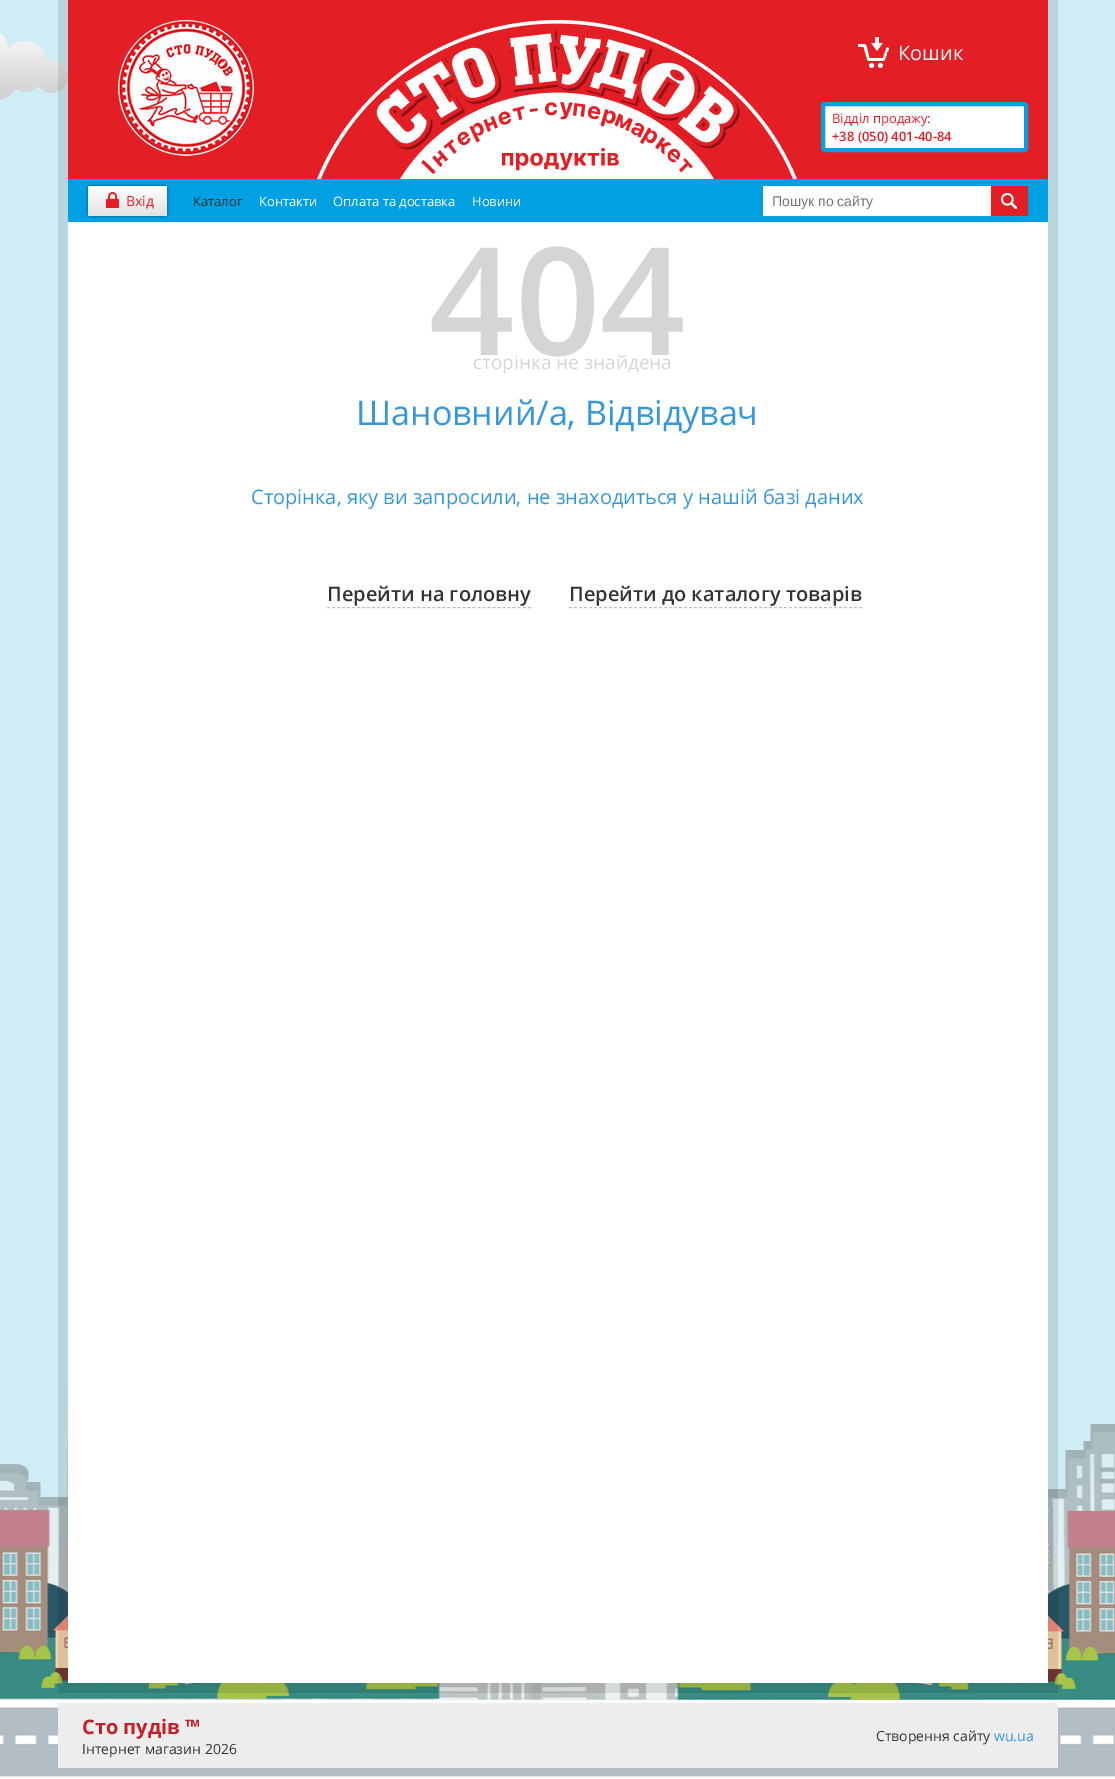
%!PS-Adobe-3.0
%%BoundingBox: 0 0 1115 1779
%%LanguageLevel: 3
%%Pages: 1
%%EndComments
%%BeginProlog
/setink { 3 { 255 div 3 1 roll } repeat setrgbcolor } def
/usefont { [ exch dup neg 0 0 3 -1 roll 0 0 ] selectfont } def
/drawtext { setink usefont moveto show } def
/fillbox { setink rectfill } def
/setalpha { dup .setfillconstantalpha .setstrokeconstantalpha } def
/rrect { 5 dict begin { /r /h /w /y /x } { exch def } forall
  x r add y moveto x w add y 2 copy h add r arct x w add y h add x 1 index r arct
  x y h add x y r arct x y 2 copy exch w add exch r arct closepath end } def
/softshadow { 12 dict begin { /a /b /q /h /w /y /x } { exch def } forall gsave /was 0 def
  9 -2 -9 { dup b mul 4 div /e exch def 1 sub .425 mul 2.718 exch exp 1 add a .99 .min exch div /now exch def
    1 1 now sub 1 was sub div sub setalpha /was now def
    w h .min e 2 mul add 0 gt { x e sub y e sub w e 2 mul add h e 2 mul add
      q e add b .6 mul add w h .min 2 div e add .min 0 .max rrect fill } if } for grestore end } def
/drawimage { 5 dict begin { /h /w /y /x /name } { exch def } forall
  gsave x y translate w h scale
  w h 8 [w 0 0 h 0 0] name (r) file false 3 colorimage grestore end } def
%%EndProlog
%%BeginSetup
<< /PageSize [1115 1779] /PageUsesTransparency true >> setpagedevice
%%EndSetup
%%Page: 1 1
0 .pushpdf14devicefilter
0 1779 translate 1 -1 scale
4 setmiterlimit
0 0 1115 1779 207 237 245 fillbox
(assets/img1.rgb) 0 33 1115 1746 drawimage
68 0 980 179 227 30 36 fillbox
1048 0 10 222 186 213 221 fillbox
0.1 setalpha
58 0 10 179 0 0 0 fillbox
1 setalpha
(assets/img2.rgb) 118 20 136 136 drawimage
(assets/img3.rgb) 317 20 480 159 drawimage
(assets/img4.rgb) 858 37 31 31 drawimage
(Кошик) 898 60 /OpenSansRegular-Regular 20 255 255 255 drawtext
823 104 203 46 2 rrect gsave fill grestore
0 160 227 setink
4 setlinewidth
stroke
(Відділ продажу:) 832 123 /OpenSansRegular-Regular 13 227 30 36 drawtext
(+38 \(050\) 401-40-84) 832 141 /OpenSans-SemiBold 13 227 30 36 drawtext
68 179 980 43 0 160 227 fillbox
58 179 10 43 186 213 221 fillbox
0 0 0 setink
88 186 79 30 3 1.5 0.5 softshadow
gsave 88 186 79 30 3 rrect clip newpath
<< /ShadingType 2 /ColorSpace /DeviceRGB /Coords [128 186 128 216] /Extend [true true] /Function << /FunctionType 2 /Domain [0 1] /C0 [1 1 1] /C1 [0.882 0.882 0.882] /N 1 >> >> shfill grestore
(assets/img5.rgb) 106 192 13 16 drawimage
(Вхід) 126 206 /OpenSansRegular-Regular 14 227 30 36 drawtext
(Каталог) 193 206 /OpenSansRegular-Regular 13 51 51 51 drawtext
(Контакти) 259 206 /OpenSansRegular-Regular 13 255 255 255 drawtext
(Оплата та доставка) 333 206 /OpenSansRegular-Regular 13 255 255 255 drawtext
(Новини) 472 206 /OpenSansRegular-Regular 13 255 255 255 drawtext
763 186 228 30 255 255 255 fillbox
(Пошук по сайту) 772 206 /LiberationSans-Regular 14 117 117 117 drawtext
991 186 37 30 227 30 36 fillbox
(assets/img6.rgb) 1001 193 16 16 drawimage
68 222 980 1461 255 255 255 fillbox
0.1 setalpha
0 0 0 setink
1058 222 moveto 1058 1693 lineto 1048 1683 lineto 1048 222 lineto closepath fill
1058 1693 moveto 58 1693 lineto 68 1683 lineto 1048 1683 lineto closepath fill
58 1693 moveto 58 222 lineto 68 222 lineto 68 1683 lineto closepath fill
1 setalpha
(404) 429 355 /OpenSans-SemiBold 150 213 213 213 drawtext
(сторінка не знайдена) 473 369 /OpenSansRegular-Regular 19 213 213 213 drawtext
(Шановний/а, Відвідувач) 356 425 /OpenSansRegular-Regular 34 52 152 219 drawtext
(Сторінка, яку ви запросили, не знаходиться у нашій базі даних) 251 504 /OpenSansRegular-Regular 20 52 152 219 drawtext
(Перейти на головну) 327 601 /OpenSans-SemiBold 20 51 51 51 drawtext
191 191 191 setink
1 setlinewidth
[3 2.02] 0 setdash
327 607.5 moveto 531 607.5 lineto stroke
(Перейти до каталогу товарів) 569 601 /OpenSans-SemiBold 20 51 51 51 drawtext
191 191 191 setink
[3 2] 0 setdash
569 607.5 moveto 862 607.5 lineto stroke
58 1703 1000 65 237 237 237 fillbox
(Сто пудів ™) 82 1734 /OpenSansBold-Bold 20 192 34 40 drawtext
(Інтернет магазин 2026) 82 1754 /OpenSansRegular-Regular 14 51 51 51 drawtext
(Створення сайту) 876 1741 /OpenSansRegular-Regular 14 51 51 51 drawtext
(wu.ua) 994 1741 /OpenSansRegular-Regular 14 52 152 219 drawtext
.poppdf14devicefilter showpage
%%EOF
